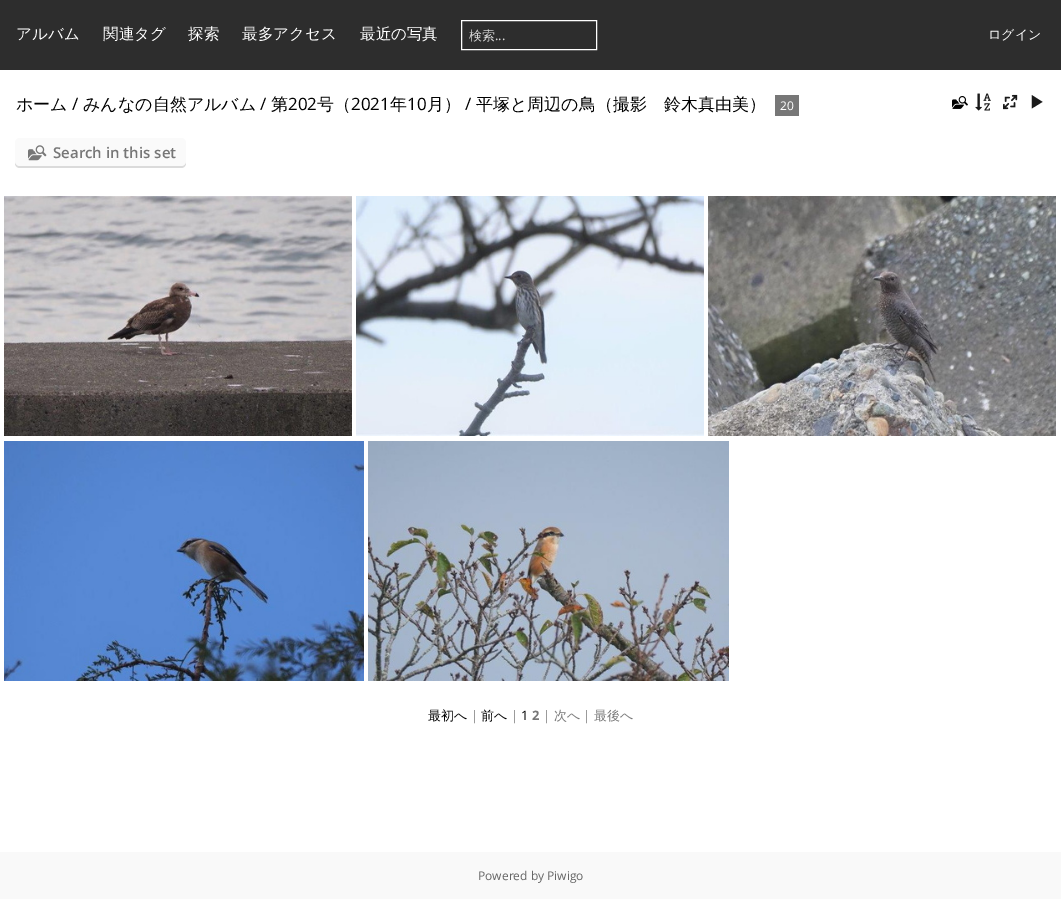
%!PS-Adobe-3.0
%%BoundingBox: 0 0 1061 899
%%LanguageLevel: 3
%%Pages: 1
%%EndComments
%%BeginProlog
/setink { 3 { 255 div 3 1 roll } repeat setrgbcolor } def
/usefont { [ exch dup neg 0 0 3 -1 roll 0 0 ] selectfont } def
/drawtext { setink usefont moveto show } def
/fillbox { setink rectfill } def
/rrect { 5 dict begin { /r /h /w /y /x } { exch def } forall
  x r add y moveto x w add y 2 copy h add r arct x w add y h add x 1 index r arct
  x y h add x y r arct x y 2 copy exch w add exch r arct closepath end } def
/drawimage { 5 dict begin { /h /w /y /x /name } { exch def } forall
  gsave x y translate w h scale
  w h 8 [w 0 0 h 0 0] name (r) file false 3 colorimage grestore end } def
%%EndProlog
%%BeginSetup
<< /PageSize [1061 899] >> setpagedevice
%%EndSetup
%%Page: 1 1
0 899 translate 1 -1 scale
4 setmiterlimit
0 0 1061 899 255 255 255 fillbox
0 0 1061 70 45 45 45 fillbox
(アルバム) 16 39 /WenQuanYiZenHei-Medium 15.5 255 255 255 drawtext
(関連タグ) 103 39 /WenQuanYiZenHei-Medium 15.5 255 255 255 drawtext
(探索) 188 39 /WenQuanYiZenHei-Medium 15.5 255 255 255 drawtext
(最多アクセス) 242 39 /WenQuanYiZenHei-Medium 15.5 255 255 255 drawtext
(最近の写真) 360 39 /WenQuanYiZenHei-Medium 15.5 255 255 255 drawtext
461.5 20.5 135 29 rectstroke
(検索) 469 40 /WenQuanYiZenHei-Medium 13 214 214 214 drawtext
(...) 495 40 /OpenSans-Regular 13 214 214 214 drawtext
(ログイン) 988 39 /WenQuanYiZenHei-Medium 13 255 255 255 drawtext
(ホーム) 16 110 /WenQuanYiZenHei-Medium 17 0 0 0 drawtext
(/) 72 110 /OpenSans-Regular 17 0 0 0 drawtext
(みんなの自然アルバム) 83 110 /WenQuanYiZenHei-Medium 17 0 0 0 drawtext
(/) 260 110 /OpenSans-Regular 17 0 0 0 drawtext
(第) 271 110 /WenQuanYiZenHei-Medium 17 0 0 0 drawtext
(202) 288 110 /OpenSans-Regular 17 0 0 0 drawtext
(号（) 317 110 /WenQuanYiZenHei-Medium 17 0 0 0 drawtext
(2021) 351 110 /OpenSans-Regular 17 0 0 0 drawtext
(年) 390 110 /WenQuanYiZenHei-Medium 17 0 0 0 drawtext
(10) 407 110 /OpenSans-Regular 17 0 0 0 drawtext
(月）) 427 110 /WenQuanYiZenHei-Medium 17 0 0 0 drawtext
(/) 465 110 /OpenSans-Regular 17 0 0 0 drawtext
(平塚と周辺の鳥（撮影　鈴木真由美）) 476 110 /WenQuanYiZenHei-Medium 17 0 0 0 drawtext
775 95 24 21 119 119 119 fillbox
(20) 780 110 /OpenSans-Regular 12 255 255 255 drawtext
(assets/img1.rgb) 952 96 16 13 drawimage
(assets/img2.rgb) 975 93 16 18 drawimage
(assets/img3.rgb) 1003 94 15 16 drawimage
(▶) 1029 108 /WenQuanYiZenHei-Medium 17 26 26 26 drawtext
219 219 219 setink
15 161 moveto 15 163 lineto 15 166 17 168 20 168 curveto 181 168 lineto 184 168 186 166 186 163 curveto 186 161 lineto 186 164 184 166 181 166 curveto 20 166 lineto 17 166 15 164 15 161 curveto closepath fill
250 250 250 setink
15 138 171 28 5 rrect fill
(assets/img4.rgb) 28 145 19 16 drawimage
(Search in this set) 53 158 /OpenSans-SemiBold 15 119 119 119 drawtext
(assets/img5.rgb) 4 196 348 240 drawimage
(assets/img6.rgb) 356 196 348 240 drawimage
(assets/img7.rgb) 708 196 348 240 drawimage
(assets/img8.rgb) 4 441 360 240 drawimage
(assets/img9.rgb) 368 441 361 240 drawimage
(最初へ) 428 720 /WenQuanYiZenHei-Medium 13 0 0 0 drawtext
(|) 471 720 /OpenSans-Regular 13 119 119 119 drawtext
(前へ) 481 720 /WenQuanYiZenHei-Medium 13 0 0 0 drawtext
(|) 511 720 /OpenSans-Regular 13 119 119 119 drawtext
(1) 521 720 /OpenSans-Regular 13 0 0 0 drawtext
(2) 532 720 /OpenSans-Bold 13 119 119 119 drawtext
(|) 543 720 /OpenSans-Regular 13 119 119 119 drawtext
(次へ) 554 720 /WenQuanYiZenHei-Medium 13 119 119 119 drawtext
(|) 583 720 /OpenSans-Regular 13 119 119 119 drawtext
(最後へ) 594 720 /WenQuanYiZenHei-Medium 13 119 119 119 drawtext
0 852 1061 47 249 249 249 fillbox
(Powered by Piwigo) 478 880 /OpenSans-Regular 12 102 102 102 drawtext
showpage
%%EOF
